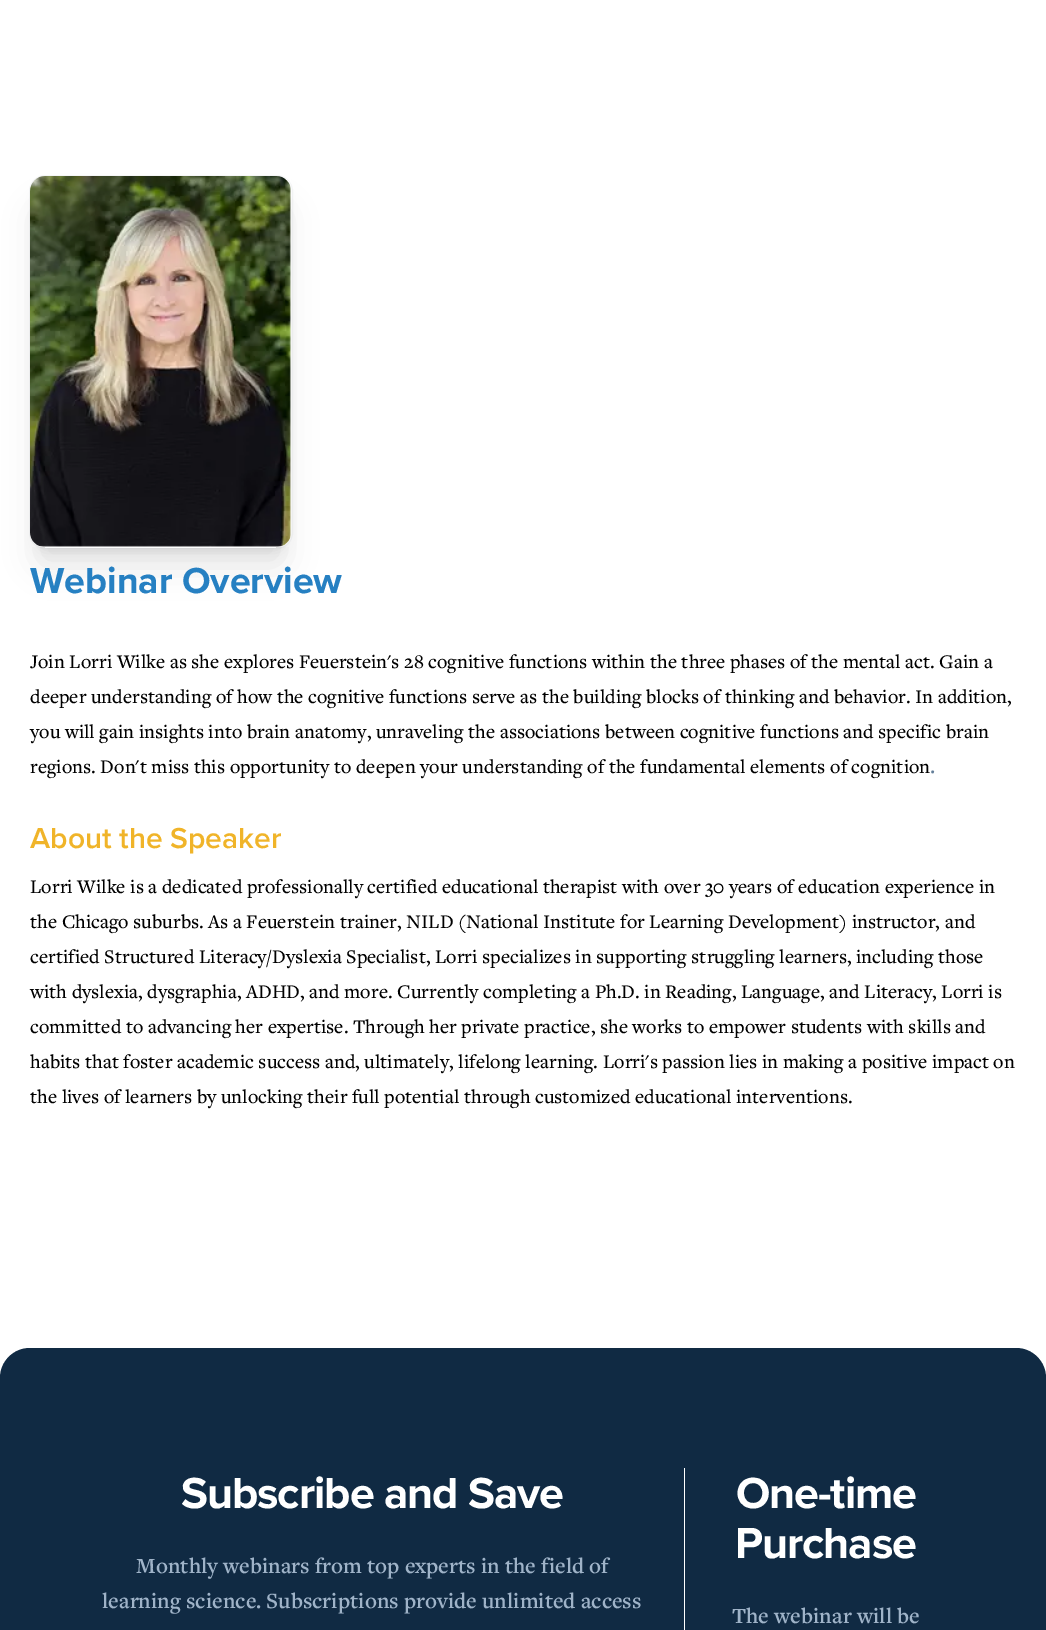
%!PS-Adobe-3.0
%%BoundingBox: 0 0 1046 1630
%%LanguageLevel: 3
%%Pages: 1
%%EndComments
%%BeginProlog
/setink { 3 { 255 div 3 1 roll } repeat setrgbcolor } def
/usefont { [ exch dup neg 0 0 3 -1 roll 0 0 ] selectfont } def
/drawtext { setink usefont moveto show } def
/fillbox { setink rectfill } def
/setalpha { dup .setfillconstantalpha .setstrokeconstantalpha } def
/rrect { 5 dict begin { /r /h /w /y /x } { exch def } forall
  x r add y moveto x w add y 2 copy h add r arct x w add y h add x 1 index r arct
  x y h add x y r arct x y 2 copy exch w add exch r arct closepath end } def
/softshadow { 12 dict begin { /a /b /q /h /w /y /x } { exch def } forall gsave /was 0 def
  9 -2 -9 { dup b mul 4 div /e exch def 1 sub .425 mul 2.718 exch exp 1 add a .99 .min exch div /now exch def
    1 1 now sub 1 was sub div sub setalpha /was now def
    w h .min e 2 mul add 0 gt { x e sub y e sub w e 2 mul add h e 2 mul add
      q e add b .6 mul add w h .min 2 div e add .min 0 .max rrect fill } if } for grestore end } def
/drawimage { 5 dict begin { /h /w /y /x /name } { exch def } forall
  gsave x y translate w h scale
  w h 8 [w 0 0 h 0 0] name (r) file false 3 colorimage grestore end } def
%%EndProlog
%%BeginSetup
<< /PageSize [1046 1630] /PageUsesTransparency true >> setpagedevice
%%EndSetup
%%Page: 1 1
0 .pushpdf14devicefilter
0 1630 translate 1 -1 scale
4 setmiterlimit
0 0 1046 1630 255 255 255 fillbox
gsave
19 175 moveto 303 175 lineto 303 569 lineto 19 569 lineto closepath 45 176 moveto 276 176 lineto 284.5 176 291 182.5 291 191 curveto 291 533 lineto 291 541.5 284.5 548 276 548 curveto 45 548 lineto 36.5 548 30 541.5 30 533 curveto 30 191 lineto 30 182.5 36.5 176 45 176 curveto closepath eoclip newpath
0 0 0 setink
38 194 246 356 8 6 0.1 softshadow
grestore
gsave
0 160 moveto 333 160 lineto 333 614 lineto 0 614 lineto closepath 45 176 moveto 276 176 lineto 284.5 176 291 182.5 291 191 curveto 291 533 lineto 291 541.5 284.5 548 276 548 curveto 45 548 lineto 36.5 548 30 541.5 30 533 curveto 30 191 lineto 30 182.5 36.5 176 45 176 curveto closepath eoclip newpath
0 0 0 setink
36 208 249 358 9 15.5 0.1 softshadow
grestore
0.1 setalpha
156 163 175 setink
29.5 175.5 263 373 15.5 rrect stroke
1 setalpha
(assets/img1.rgb) 30 176 261 371 drawimage
(Webinar Overview) 30 593 /ProximaNova-Bold 37.5 38 128 194 drawtext
(Join Lorri Wilke as she explores Feuerstein's 28 cognitive functions within the three phases of the mental act. Gain a) 30 668 /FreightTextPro-Medium 20 0 0 0 drawtext
(deeper understanding of how the cognitive functions serve as the building blocks of thinking and behavior. In addition,) 30 703 /FreightTextPro-Medium 20 0 0 0 drawtext
(you will gain insights into brain anatomy, unraveling the associations between cognitive functions and specific brain) 30 738 /FreightTextPro-Medium 20 0 0 0 drawtext
(regions. Don't miss this opportunity to deepen your understanding of the fundamental elements of cognition) 30 773 /FreightTextPro-Medium 20 0 0 0 drawtext
(.) 930 773 /FreightTextPro-Medium 22.5 98 125 152 drawtext
(About the Speaker) 30 848 /ProximaNova-SemiBold 30 240 180 41 drawtext
(Lorri Wilke is a dedicated professionally certified educational therapist with over 30 years of education experience in) 30 893 /FreightTextPro-Medium 20 0 0 0 drawtext
(the Chicago suburbs. As a Feuerstein trainer, NILD \(National Institute for Learning Development\) instructor, and) 30 928 /FreightTextPro-Medium 20 0 0 0 drawtext
(certified Structured Literacy/Dyslexia Specialist, Lorri specializes in supporting struggling learners, including those) 30 963 /FreightTextPro-Medium 20 0 0 0 drawtext
(with dyslexia, dysgraphia, ADHD, and more. Currently completing a Ph.D. in Reading, Language, and Literacy, Lorri is) 30 998 /FreightTextPro-Medium 20 0 0 0 drawtext
(committed to advancing her expertise. Through her private practice, she works to empower students with skills and) 30 1033 /FreightTextPro-Medium 20 0 0 0 drawtext
(habits that foster academic success and, ultimately, lifelong learning. Lorri's passion lies in making a positive impact on) 30 1068 /FreightTextPro-Medium 20 0 0 0 drawtext
(the lives of learners by unlocking their full potential through customized educational interventions.) 30 1103 /FreightTextPro-Medium 20 0 0 0 drawtext
16 42 67 setink
0 1348 1046 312 30 rrect fill
/ProximaNova-Bold 45 usefont
255 255 255 setink
181 1508 moveto -1.1 0 (Subscribe and Save) ashow
(Monthly webinars from top experts in the field of) 136 1573 /FreightTextPro-SemiBold 22.5 159 179 200 drawtext
(learning science. Subscriptions provide unlimited access) 102 1608 /FreightTextPro-SemiBold 22.5 159 179 200 drawtext
684 1468 1 162 255 255 255 fillbox
/ProximaNova-Bold 45 usefont
736 1508 moveto -1.1 0 (One-time) ashow
735 1558 moveto -1.1 0 (Purchase) ashow
(The webinar will be) 732 1623 /FreightTextPro-SemiBold 22.5 159 179 200 drawtext
.poppdf14devicefilter showpage
%%EOF
